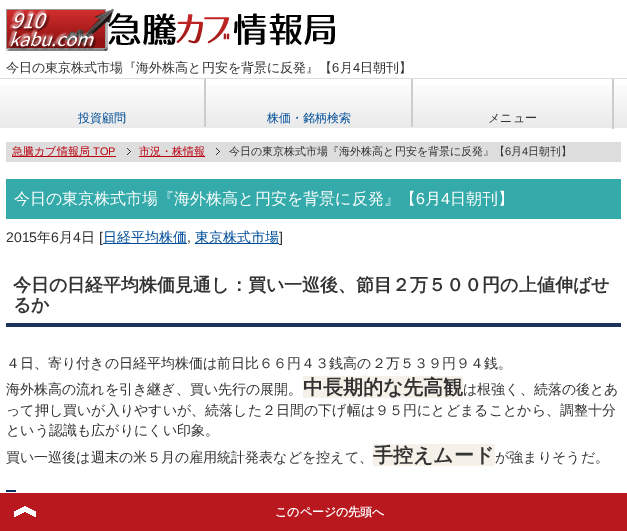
%!PS-Adobe-3.0
%%BoundingBox: 0 0 627 531
%%LanguageLevel: 3
%%Pages: 1
%%EndComments
%%BeginProlog
/setink { 3 { 255 div 3 1 roll } repeat setrgbcolor } def
/usefont { [ exch dup neg 0 0 3 -1 roll 0 0 ] selectfont } def
/drawtext { setink usefont moveto show } def
/fillbox { setink rectfill } def
/drawimage { 5 dict begin { /h /w /y /x /name } { exch def } forall
  gsave x y translate w h scale
  w h 8 [w 0 0 h 0 0] name (r) file false 3 colorimage grestore end } def
%%EndProlog
%%BeginSetup
<< /PageSize [627 531] >> setpagedevice
%%EndSetup
%%Page: 1 1
0 531 translate 1 -1 scale
4 setmiterlimit
0 0 627 531 255 255 255 fillbox
(assets/img1.rgb) 6 8 329 43 drawimage
(今日の東京株式市場『海外株高と円安を背景に反発』【) 6 72 /WenQuanYiZenHei-Medium 13 51 51 51 drawtext
(6) 332 72 /LiberationSans-Regular 13 51 51 51 drawtext
(月) 340 72 /WenQuanYiZenHei-Medium 13 51 51 51 drawtext
(4) 353 72 /LiberationSans-Regular 13 51 51 51 drawtext
(日朝刊】) 360 72 /WenQuanYiZenHei-Medium 13 51 51 51 drawtext
gsave 0 85 moveto 627 85 lineto 627 128 lineto 0 128 lineto closepath clip newpath
<< /ShadingType 2 /ColorSpace /DeviceRGB /Coords [314 79 314 129] /Extend [true true] /Function << /FunctionType 2 /Domain [0 1] /C0 [1 1 1] /C1 [0.914 0.914 0.914] /N 1 >> >> shfill grestore
0 78 627 1 221 221 221 fillbox
204 79 2 48 204 204 204 fillbox
(投資顧問) 78 122 /WenQuanYiZenHei-Medium 12 0 77 153 drawtext
411 79 2 48 204 204 204 fillbox
(株価・銘柄検索) 267 122 /WenQuanYiZenHei-Medium 12 0 77 153 drawtext
612 79 2 50 204 204 204 fillbox
(メニュー) 488 122 /WenQuanYiZenHei-Medium 12 51 51 51 drawtext
6 142 615 20 221 221 221 fillbox
12 156 104 1 187 0 14 fillbox
(急騰カブ情報局) 12 155 /WenQuanYiZenHei-Medium 11 187 0 14 drawtext
(TOP) 93 155 /LiberationSans-Regular 11 187 0 14 drawtext
(assets/img2.rgb) 127 148 4 7 drawimage
139 156 66 1 187 0 14 fillbox
(市況・株情報) 139 155 /WenQuanYiZenHei-Medium 11 187 0 14 drawtext
(assets/img2.rgb) 216 148 4 7 drawimage
(今日の東京株式市場『海外株高と円安を背景に反発』【) 229 155 /WenQuanYiZenHei-Medium 11 51 51 51 drawtext
(6) 505 155 /LiberationSans-Regular 11 51 51 51 drawtext
(月) 511 155 /WenQuanYiZenHei-Medium 11 51 51 51 drawtext
(4) 522 155 /LiberationSans-Regular 11 51 51 51 drawtext
(日朝刊】) 528 155 /WenQuanYiZenHei-Medium 11 51 51 51 drawtext
6 179 615 40 52 170 171 fillbox
(今日の東京株式市場『海外株高と円安を背景に反発』【) 14 204 /WenQuanYiZenHei-Medium 16 255 255 255 drawtext
(6) 416 204 /LiberationSans-Regular 16 255 255 255 drawtext
(月) 425 204 /WenQuanYiZenHei-Medium 16 255 255 255 drawtext
(4) 441 204 /LiberationSans-Regular 16 255 255 255 drawtext
(日朝刊】) 450 204 /WenQuanYiZenHei-Medium 16 255 255 255 drawtext
(2015) 6 242 /LiberationSans-Regular 14 51 51 51 drawtext
(年) 37 242 /WenQuanYiZenHei-Medium 14 51 51 51 drawtext
(6) 51 242 /LiberationSans-Regular 14 51 51 51 drawtext
(月) 59 242 /WenQuanYiZenHei-Medium 14 51 51 51 drawtext
(4) 73 242 /LiberationSans-Regular 14 51 51 51 drawtext
(日) 81 242 /WenQuanYiZenHei-Medium 14 51 51 51 drawtext
([) 99 242 /LiberationSans-Regular 14 51 51 51 drawtext
103 243 84 1 0 77 153 fillbox
(日経平均株価) 103 242 /WenQuanYiZenHei-Medium 14 0 77 153 drawtext
(,) 187 242 /LiberationSans-Regular 14 51 51 51 drawtext
195 243 84 1 0 77 153 fillbox
(東京株式市場) 195 242 /WenQuanYiZenHei-Medium 14 0 77 153 drawtext
(]) 279 242 /LiberationSans-Regular 14 51 51 51 drawtext
6 323 615 4 30 51 92 fillbox
(今日の日経平均株価見通し：買い一巡後、節目２万５００円の上値伸ばせ) 13 291 /WenQuanYiZenHei-Bold 18 51 51 51 drawtext
(るか) 13 311 /WenQuanYiZenHei-Bold 18 51 51 51 drawtext
(４日、寄り付きの日経平均株価は前日比６６円４３銭高の２万５３９円９４銭。) 6 368 /WenQuanYiZenHei-Medium 14 51 51 51 drawtext
(海外株高の流れを引き継ぎ、買い先行の展開。) 6 394 /WenQuanYiZenHei-Medium 14 51 51 51 drawtext
303 376 160 22 245 241 233 fillbox
(中長期的な先高観) 303 394 /WenQuanYiZenHei-Bold 20 51 51 51 drawtext
(は根強く、続落の後とあ) 463 394 /WenQuanYiZenHei-Medium 14 51 51 51 drawtext
(って押し買いが入りやすいが、続落した２日間の下げ幅は９５円にとどまることから、調整十分) 6 415 /WenQuanYiZenHei-Medium 14 51 51 51 drawtext
(という認識も広がりにくい印象。) 6 435 /WenQuanYiZenHei-Medium 14 51 51 51 drawtext
(買い一巡後は週末の米５月の雇用統計発表などを控えて、) 6 462 /WenQuanYiZenHei-Medium 14 51 51 51 drawtext
373 444 122 22 245 241 233 fillbox
(手控えムード) 373 462 /WenQuanYiZenHei-Bold 20 51 51 51 drawtext
(が強まりそうだ。) 495 462 /WenQuanYiZenHei-Medium 14 51 51 51 drawtext
6 490 10 2 9 49 100 fillbox
0 493 627 38 185 25 30 fillbox
(assets/img3.rgb) 14 506 22 11 drawimage
(このページの先頭へ) 275 516 /WenQuanYiZenHei-Bold 12 255 255 255 drawtext
showpage
%%EOF
